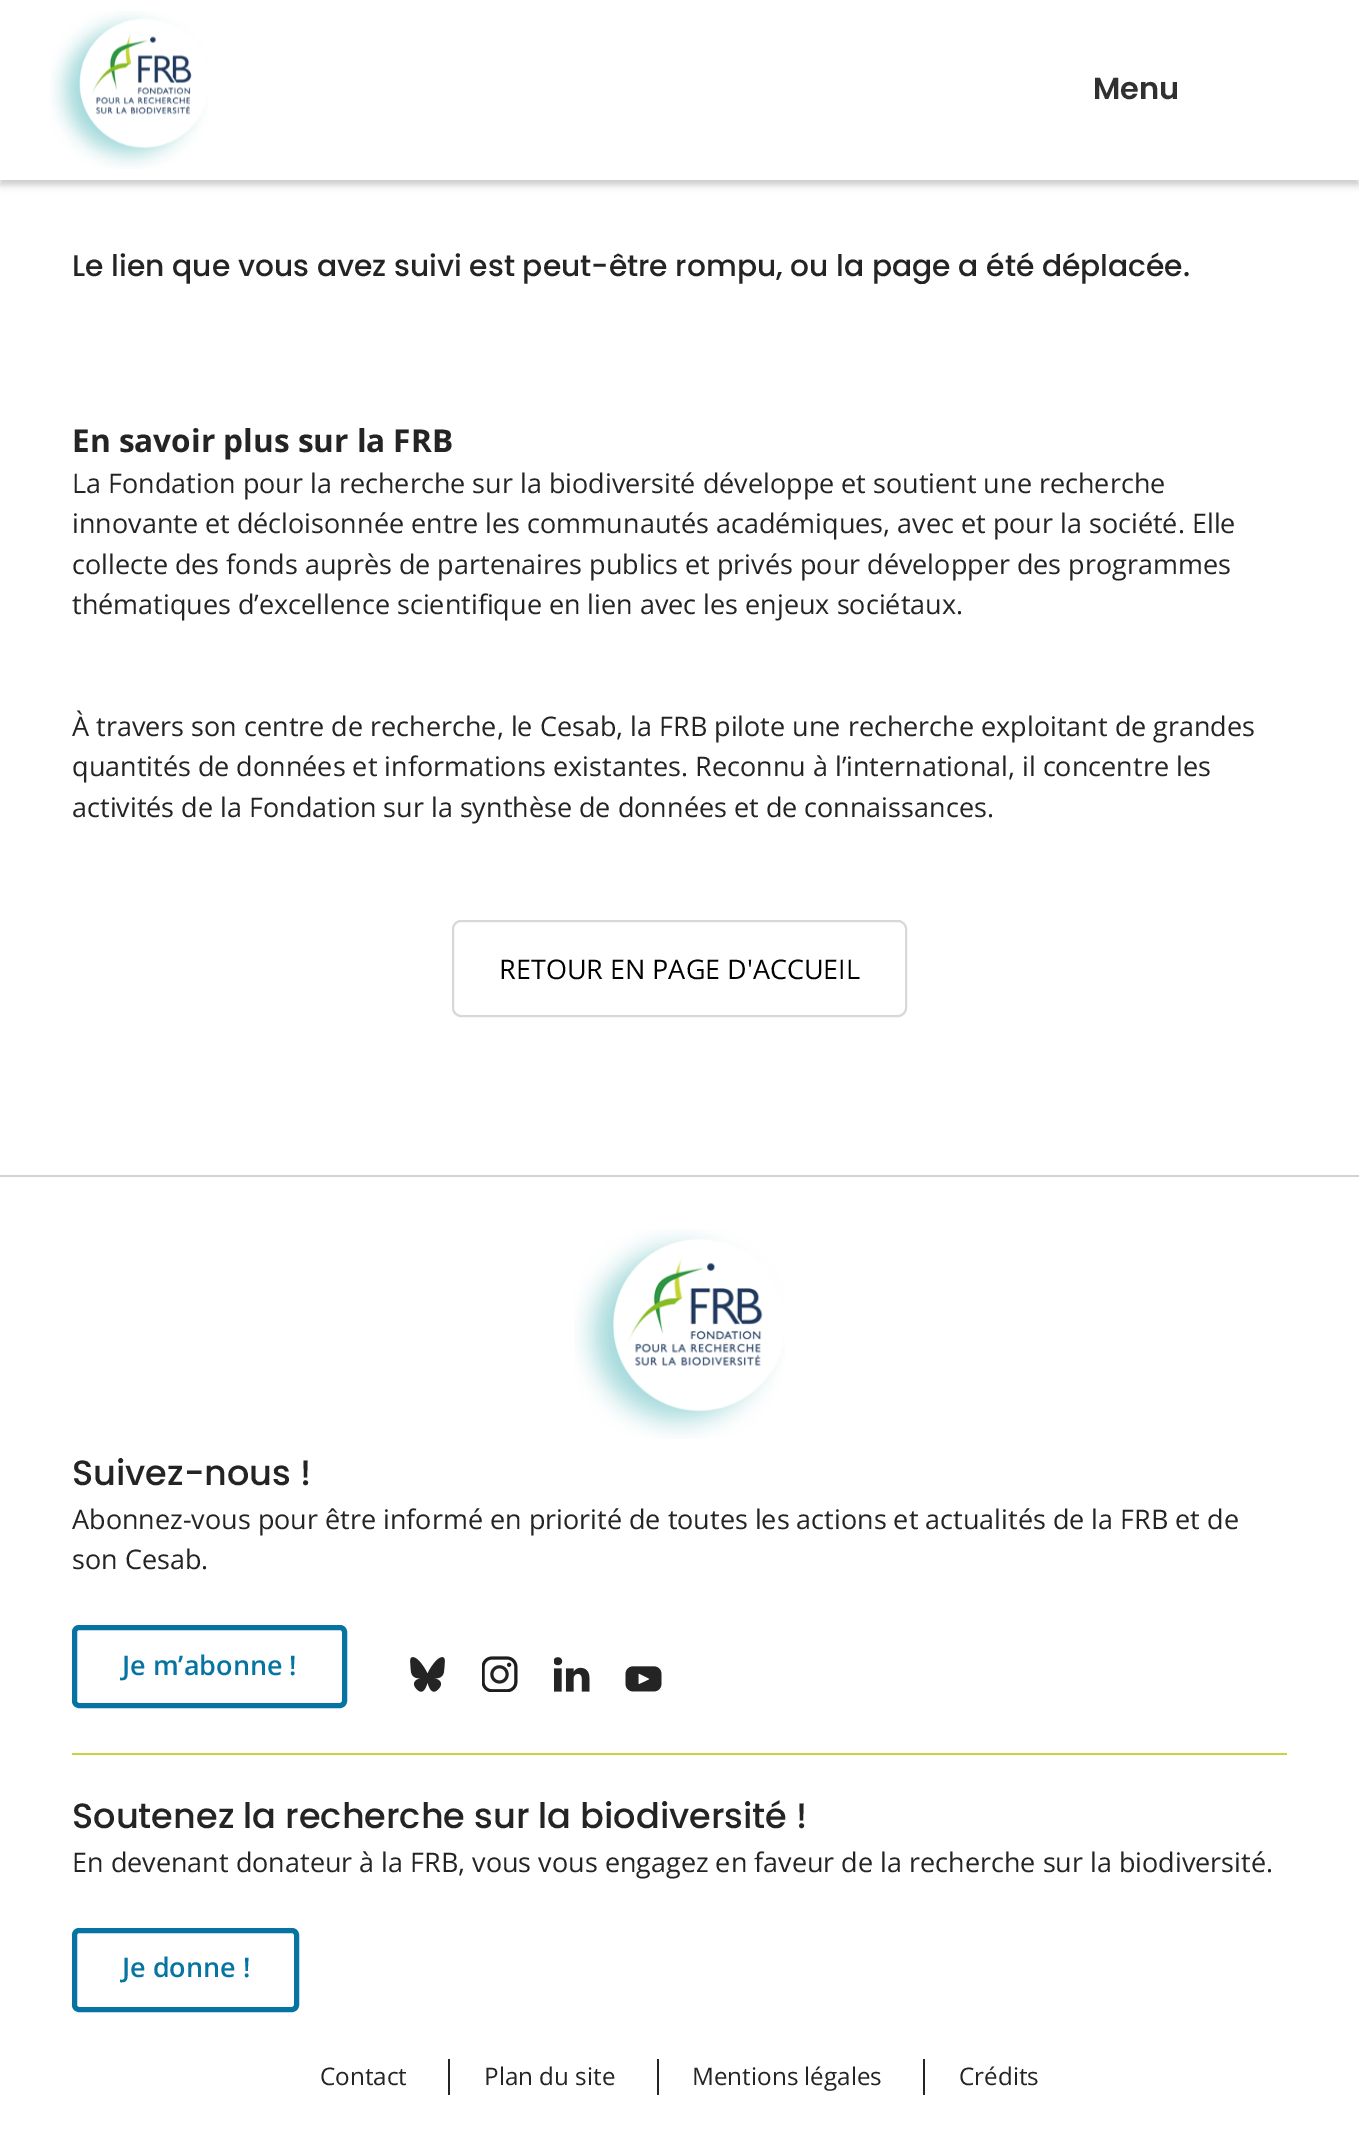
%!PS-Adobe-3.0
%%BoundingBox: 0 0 1359 2141
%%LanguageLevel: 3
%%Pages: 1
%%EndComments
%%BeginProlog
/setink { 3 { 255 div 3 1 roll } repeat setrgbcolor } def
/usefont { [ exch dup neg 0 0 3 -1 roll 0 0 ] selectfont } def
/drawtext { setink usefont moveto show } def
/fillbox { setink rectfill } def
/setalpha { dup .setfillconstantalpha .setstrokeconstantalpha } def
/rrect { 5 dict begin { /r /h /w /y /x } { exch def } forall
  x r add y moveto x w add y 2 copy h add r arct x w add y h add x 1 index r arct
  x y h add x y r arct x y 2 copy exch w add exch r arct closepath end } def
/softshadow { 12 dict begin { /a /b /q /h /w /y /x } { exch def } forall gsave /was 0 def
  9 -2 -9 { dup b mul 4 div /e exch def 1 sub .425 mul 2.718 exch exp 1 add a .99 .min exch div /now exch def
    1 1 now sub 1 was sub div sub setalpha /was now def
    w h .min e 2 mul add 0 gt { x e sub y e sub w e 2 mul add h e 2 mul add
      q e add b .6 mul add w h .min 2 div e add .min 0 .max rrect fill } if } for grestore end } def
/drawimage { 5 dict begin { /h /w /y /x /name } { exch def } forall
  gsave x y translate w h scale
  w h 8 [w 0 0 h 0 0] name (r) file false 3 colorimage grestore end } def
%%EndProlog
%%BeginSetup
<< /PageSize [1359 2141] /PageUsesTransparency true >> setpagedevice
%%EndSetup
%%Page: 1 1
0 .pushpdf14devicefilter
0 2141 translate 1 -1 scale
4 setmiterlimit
0 0 1359 2141 255 255 255 fillbox
0 0 0 setink
0 5 1359 180 0 3.5 0.2 softshadow
0 0 1359 180 255 255 255 fillbox
(assets/img1.rgb) 50 11 158 158 drawimage
(Menu) 1093 99 /Poppins-SemiBold 30.5 48 48 48 drawtext
(Le lien que vous avez suivi est peut-être rompu, ou la page a été déplacée.) 72 276 /Poppins-Medium 29.7 36 36 36 drawtext
(En savoir plus sur la FRB) 72 452 /OpenSans-Bold 31.6 36 36 36 drawtext
(La Fondation pour la recherche sur la biodiversité développe et soutient une recherche) 72 493 /OpenSans-Regular 27 36 36 36 drawtext
(innovante et décloisonnée entre les communautés académiques, avec et pour la société. Elle) 72 533 /OpenSans-Regular 27 36 36 36 drawtext
(collecte des fonds auprès de partenaires publics et privés pour développer des programmes) 72 574 /OpenSans-Regular 27 36 36 36 drawtext
(thématiques d’excellence scientifique en lien avec les enjeux sociétaux.) 72 614 /OpenSans-Regular 27 36 36 36 drawtext
(À travers son centre de recherche, le Cesab, la FRB pilote une recherche exploitant de grandes) 72 736 /OpenSans-Regular 27 36 36 36 drawtext
(quantités de données et informations existantes. Reconnu à l’international, il concentre les) 72 776 /OpenSans-Regular 27 36 36 36 drawtext
(activités de la Fondation sur la synthèse de données et de connaissances.) 72 817 /OpenSans-Regular 27 36 36 36 drawtext
216 216 216 setink
2 setlinewidth
453 921 453 95 8 rrect stroke
(RETOUR EN PAGE D'ACCUEIL) 499 979 /OpenSans-Regular 27 0 0 0 drawtext
0 1175 1359 2 211 211 211 fillbox
(assets/img2.rgb) 574 1229 211 210 drawimage
(Suivez-nous !) 72 1485 /Poppins-Medium 35.1 36 36 36 drawtext
(Abonnez-vous pour être informé en priorité de toutes les actions et actualités de la FRB et de) 72 1529 /OpenSans-Regular 27 36 36 36 drawtext
(son Cesab.) 72 1569 /OpenSans-Regular 27 36 36 36 drawtext
6 116 163 setink
5 setlinewidth
74.5 1627.5 270 78 4.5 rrect stroke
(Je m’abonne !) 122 1675 /OpenSans-SemiBold 27 6 116 163 drawtext
(assets/img3.rgb) 410 1657 35 35 drawimage
(assets/img4.rgb) 482 1656 36 36 drawimage
(assets/img5.rgb) 554 1657 36 35 drawimage
(assets/img6.rgb) 625 1666 37 26 drawimage
72 1753 1215 2 199 212 64 fillbox
(Soutenez la recherche sur la biodiversité !) 72 1828 /Poppins-Medium 35.1 36 36 36 drawtext
(En devenant donateur à la FRB, vous vous engagez en faveur de la recherche sur la biodiversité.) 72 1872 /OpenSans-Regular 27 36 36 36 drawtext
6 116 163 setink
74.5 1930.5 222 79 4.5 rrect stroke
(Je donne !) 122 1977 /OpenSans-SemiBold 27 6 116 163 drawtext
(Contact) 320 2085 /OpenSans-Regular 24.25 36 36 36 drawtext
448 2059 2 36 36 36 36 fillbox
(Plan du site) 484 2085 /OpenSans-Regular 24.25 36 36 36 drawtext
657 2059 2 36 36 36 36 fillbox
(Mentions légales) 692 2085 /OpenSans-Regular 24.25 36 36 36 drawtext
923 2059 2 36 36 36 36 fillbox
(Crédits) 959 2085 /OpenSans-Regular 24.25 36 36 36 drawtext
.poppdf14devicefilter showpage
%%EOF
